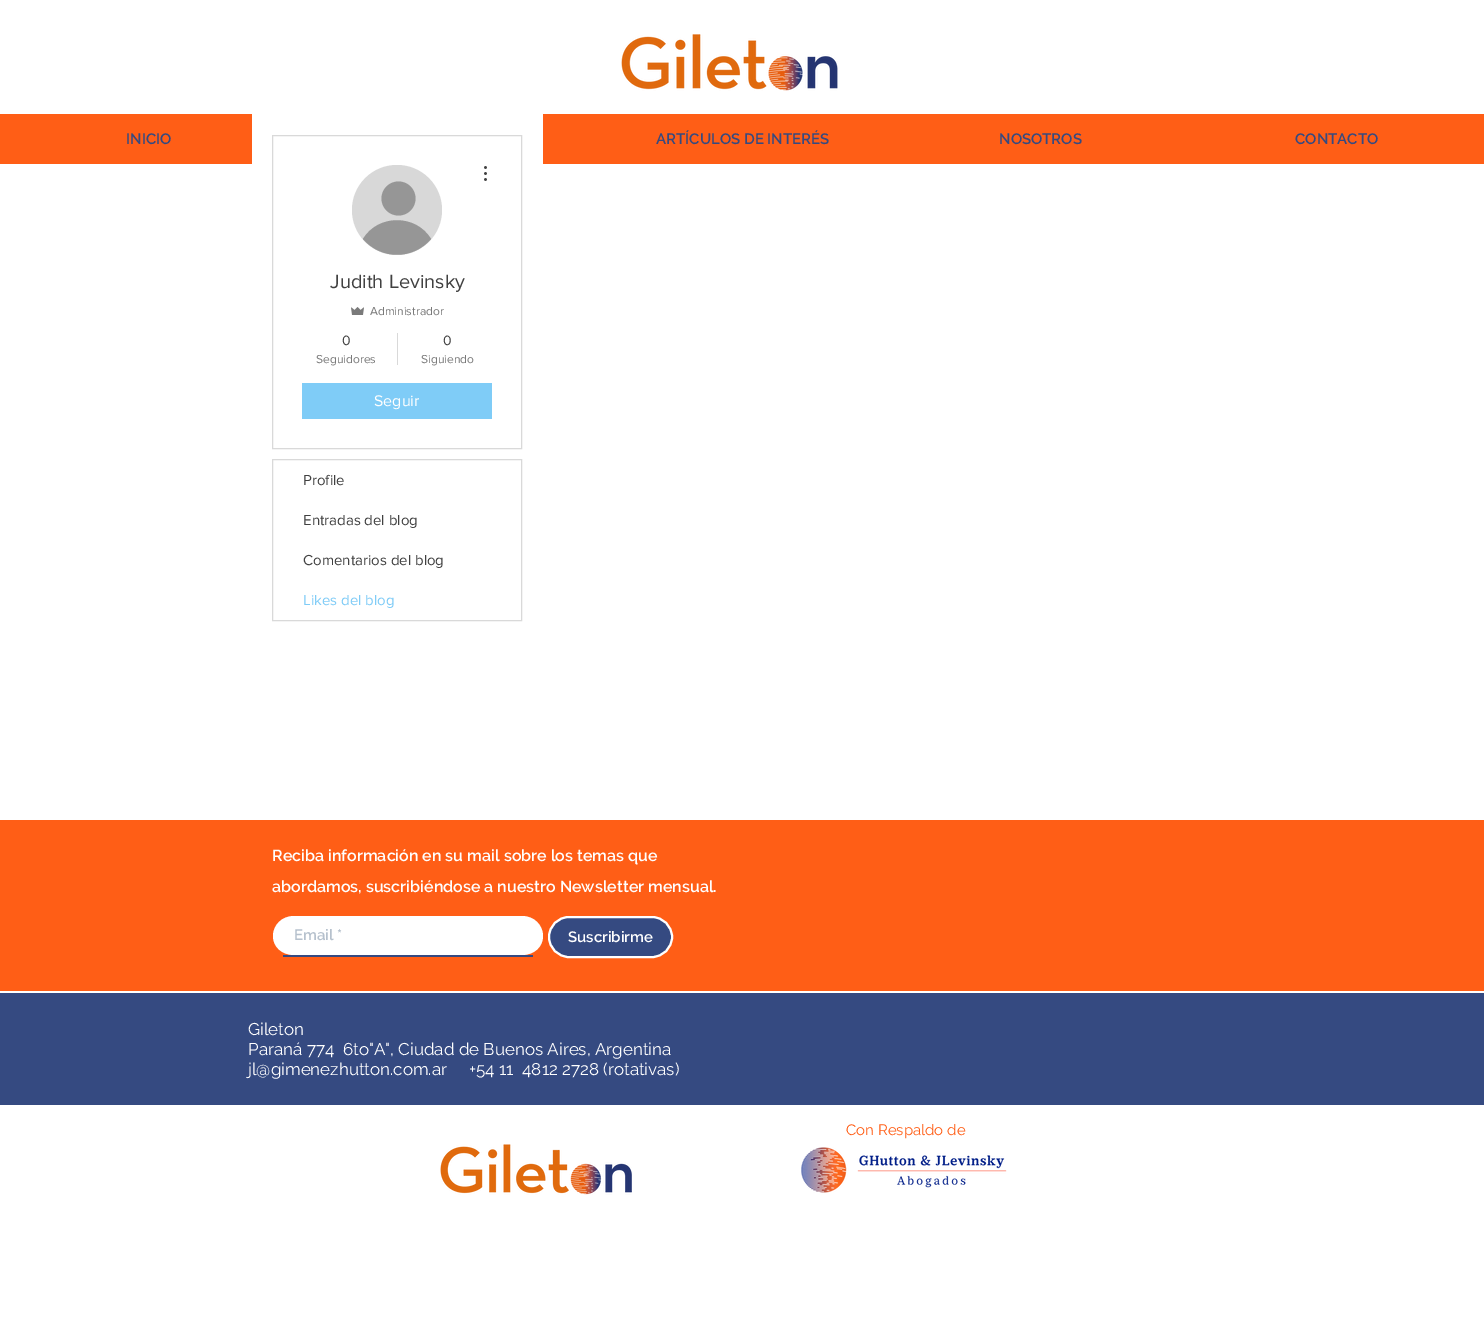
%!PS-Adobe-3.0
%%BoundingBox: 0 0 1484 1326
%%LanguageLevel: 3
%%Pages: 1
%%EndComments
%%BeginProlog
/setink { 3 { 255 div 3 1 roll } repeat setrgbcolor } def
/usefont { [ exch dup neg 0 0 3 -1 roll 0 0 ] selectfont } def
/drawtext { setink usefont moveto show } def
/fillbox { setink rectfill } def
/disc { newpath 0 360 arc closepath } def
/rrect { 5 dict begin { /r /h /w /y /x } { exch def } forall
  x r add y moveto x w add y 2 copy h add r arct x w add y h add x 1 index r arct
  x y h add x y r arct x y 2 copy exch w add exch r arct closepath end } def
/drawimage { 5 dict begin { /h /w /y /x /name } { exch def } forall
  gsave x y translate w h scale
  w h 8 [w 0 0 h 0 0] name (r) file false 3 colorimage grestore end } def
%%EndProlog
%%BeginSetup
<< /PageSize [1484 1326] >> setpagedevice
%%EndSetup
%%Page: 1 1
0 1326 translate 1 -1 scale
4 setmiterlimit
0 0 1484 1326 255 255 255 fillbox
(assets/img1.rgb) 621 34 217 57 drawimage
0 114 1484 50 255 94 22 fillbox
(INICIO) 126 144 /Raleway-SemiBold 15 53 74 129 drawtext
(ARTÍCULOS DE INTERÉS) 656 144 /Raleway-SemiBold 15 53 74 129 drawtext
(NOSOTROS) 999 144 /Raleway-SemiBold 15 53 74 129 drawtext
(CONTACTO) 1295 144 /Raleway-SemiBold 15 53 74 129 drawtext
252 114 291 50 255 255 255 fillbox
217 217 217 setink
272.5 135.5 249 313 rectstroke
216 216 216 setink
397 210 45 disc fill
150 150 150 setink
398.5 198.5 17 disc fill
431 239 moveto 413 260 381 260 363 239 curveto 378 214 416 214 431 239 curveto closepath fill
(assets/img2.rgb) 484 166 3 15 drawimage
(Judith Levinsky) 330 288 /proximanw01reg-Regular 20 65 65 65 drawtext
(assets/img3.rgb) 351 307 13 8 drawimage
(Administrador) 370 315 /proximanw01reg-Regular 12 122 122 122 drawtext
(0) 342 345 /proximanw01reg-Regular 14 65 65 65 drawtext
(Seguidores) 316 363 /proximanw01reg-Regular 12 122 122 122 drawtext
397 333 1 32 217 217 217 fillbox
(0) 443 345 /proximanw01reg-Regular 14 65 65 65 drawtext
(Siguiendo) 421 363 /proximanw01reg-Regular 12 122 122 122 drawtext
302 383 190 36 127 204 247 fillbox
(Seguir) 374 406 /proximanw01reg-Regular 16 255 255 255 drawtext
217 217 217 setink
272.5 459.5 249 161 rectstroke
(Profile) 303 485 /proximanw01reg-Regular 15 65 65 65 drawtext
(Entradas del blog) 303 525 /proximanw01reg-Regular 15 65 65 65 drawtext
(Comentarios del blog) 303 565 /proximanw01reg-Regular 15 65 65 65 drawtext
(Likes del blog) 303 605 /proximanw01reg-Regular 15 127 204 247 drawtext
0 820 1484 171 255 94 22 fillbox
(Reciba información en su mail sobre los temas que) 272 861 /Raleway-SemiBold 16 255 255 255 drawtext
(abordamos, suscribiéndose a nuestro Newsletter mensual.) 272 892 /Raleway-SemiBold 16 255 255 255 drawtext
294 916 moveto 522 916 lineto 534 916 543 925 543 936 curveto 543 947 534 955 522 955 curveto 294 955 lineto 282 955 273 947 273 936 curveto 273 925 282 916 294 916 curveto closepath fill
283 955 250 2 53 74 129 fillbox
(Email *) 294 940 /Raleway-SemiBold 15 182 193 205 drawtext
53 74 129 setink
549 917 123 40 20 rrect gsave fill grestore
255 255 255 setink
2 setlinewidth
stroke
(Suscribirme) 568 942 /Raleway-SemiBold 15 255 255 255 drawtext
0 993 1484 112 53 74 129 fillbox
(Gileton) 248 1035 /Raleway-Regular 17 255 255 255 drawtext
(Paraná 774  6to"A", Ciudad de Buenos Aires, Argentina) 248 1055 /Raleway-Regular 17 255 255 255 drawtext
(jl@gimenezhutton.com.ar) 248 1075 /Raleway-Regular 17 255 255 255 drawtext
(+54 11  4812 2728 \(rotativas\)) 469 1075 /Raleway-Regular 17 255 255 255 drawtext
(Con Respaldo de) 846 1135 /Raleway-Regular 15 255 94 22 drawtext
(assets/img4.rgb) 440 1144 192 51 drawimage
(assets/img5.rgb) 801 1147 206 46 drawimage
showpage
%%EOF
